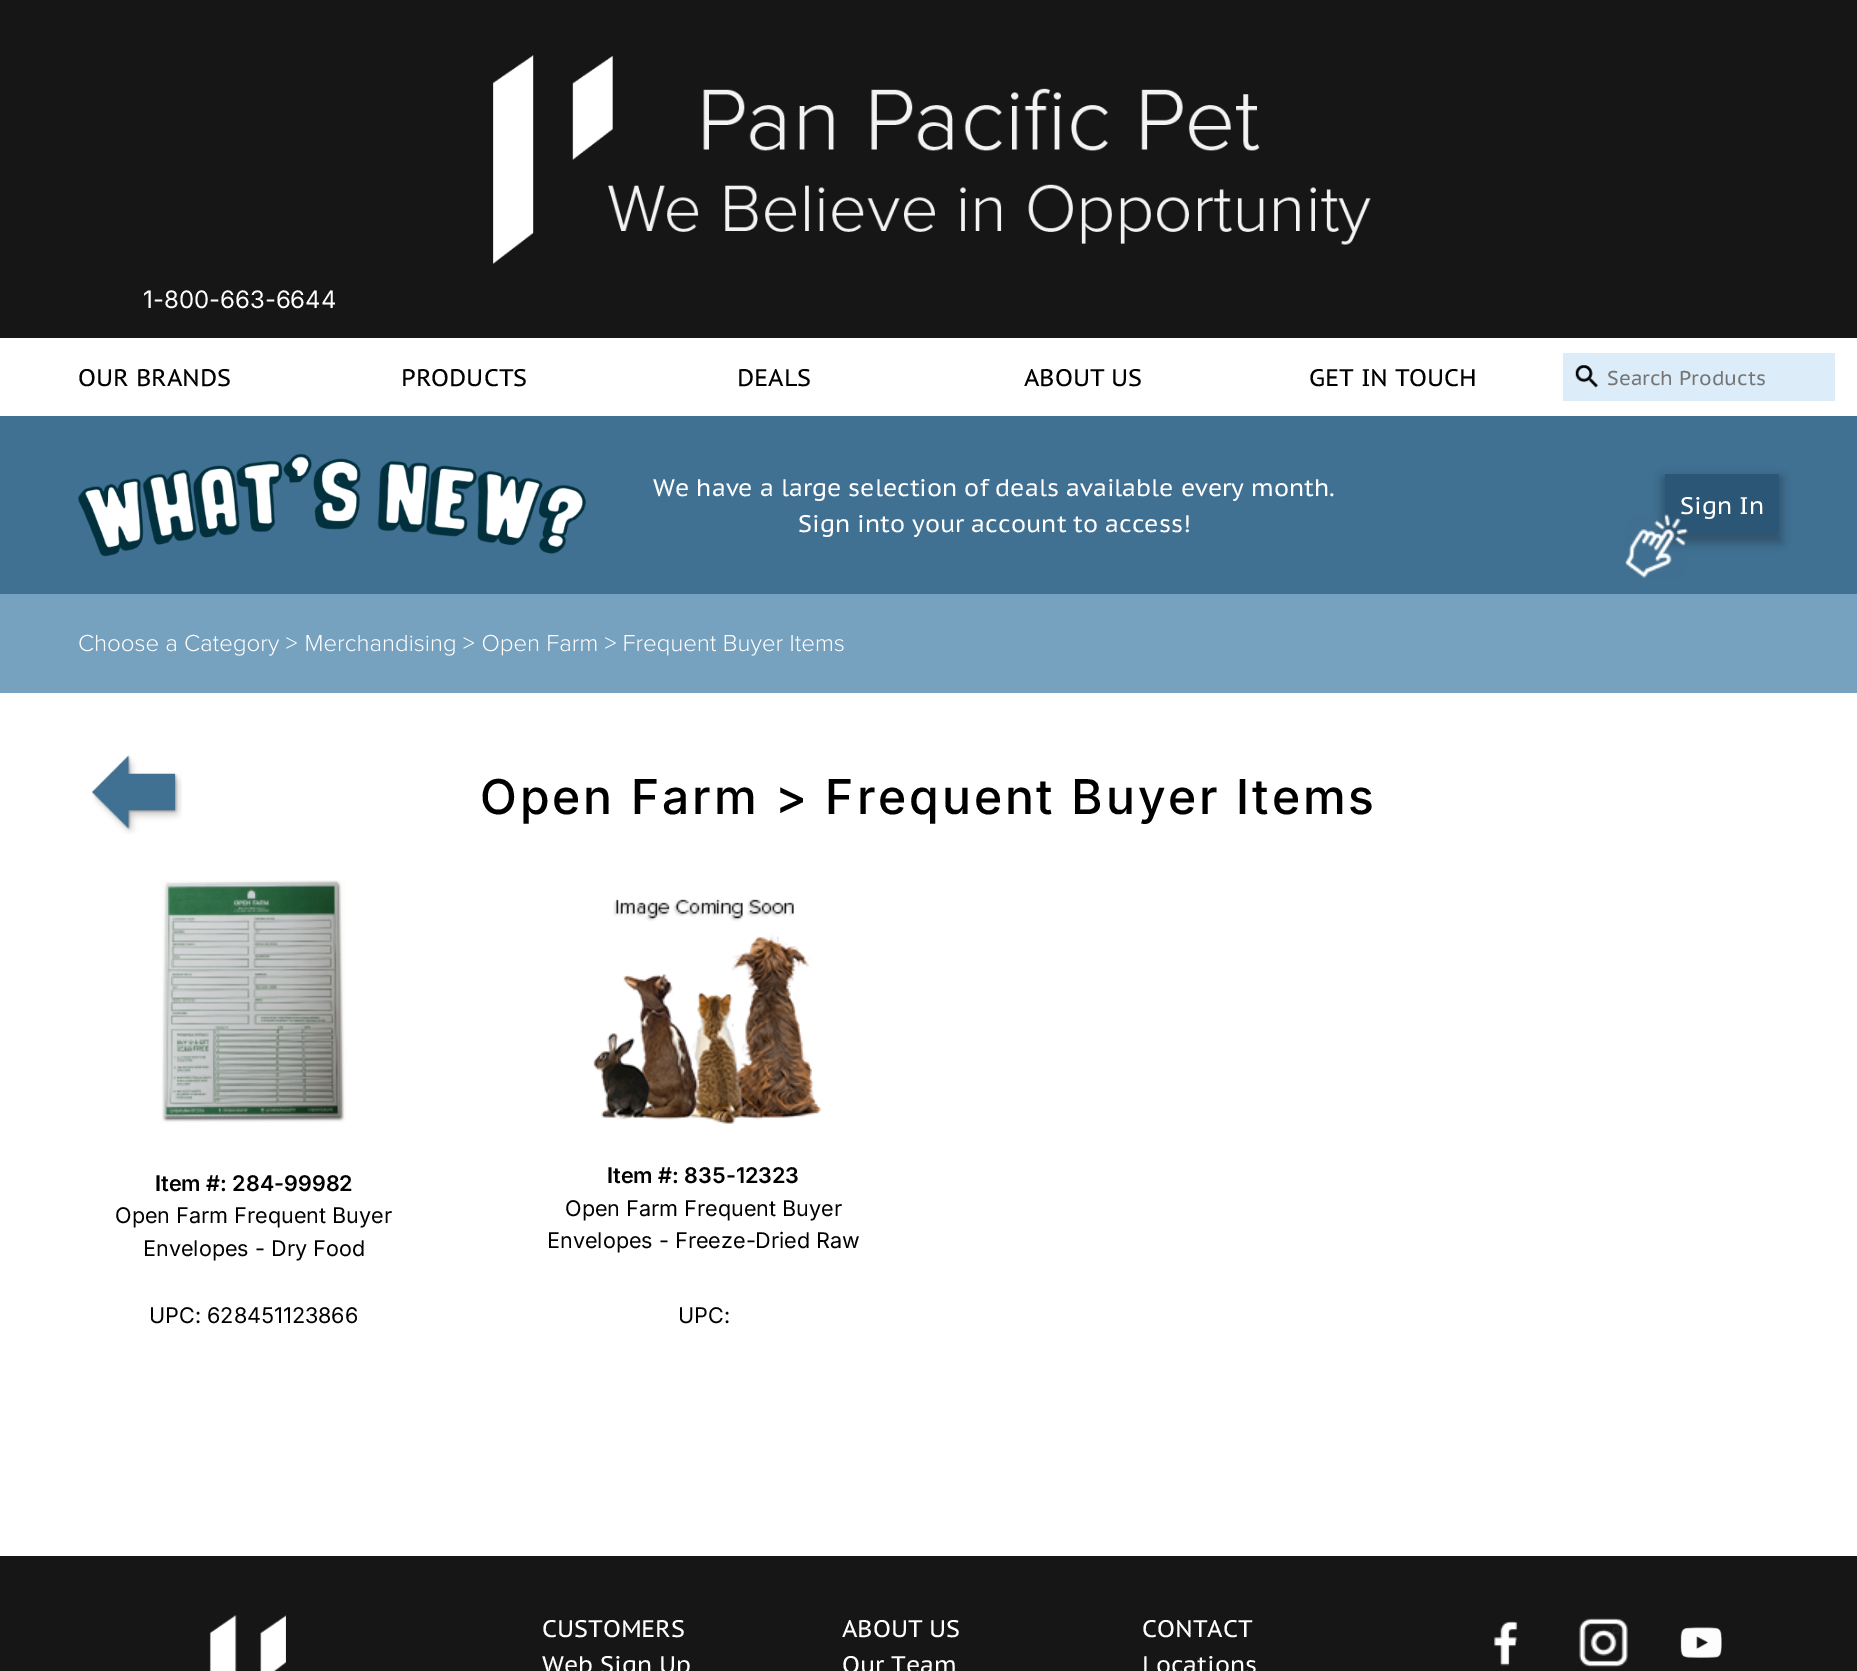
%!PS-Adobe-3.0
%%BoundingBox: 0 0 1857 1671
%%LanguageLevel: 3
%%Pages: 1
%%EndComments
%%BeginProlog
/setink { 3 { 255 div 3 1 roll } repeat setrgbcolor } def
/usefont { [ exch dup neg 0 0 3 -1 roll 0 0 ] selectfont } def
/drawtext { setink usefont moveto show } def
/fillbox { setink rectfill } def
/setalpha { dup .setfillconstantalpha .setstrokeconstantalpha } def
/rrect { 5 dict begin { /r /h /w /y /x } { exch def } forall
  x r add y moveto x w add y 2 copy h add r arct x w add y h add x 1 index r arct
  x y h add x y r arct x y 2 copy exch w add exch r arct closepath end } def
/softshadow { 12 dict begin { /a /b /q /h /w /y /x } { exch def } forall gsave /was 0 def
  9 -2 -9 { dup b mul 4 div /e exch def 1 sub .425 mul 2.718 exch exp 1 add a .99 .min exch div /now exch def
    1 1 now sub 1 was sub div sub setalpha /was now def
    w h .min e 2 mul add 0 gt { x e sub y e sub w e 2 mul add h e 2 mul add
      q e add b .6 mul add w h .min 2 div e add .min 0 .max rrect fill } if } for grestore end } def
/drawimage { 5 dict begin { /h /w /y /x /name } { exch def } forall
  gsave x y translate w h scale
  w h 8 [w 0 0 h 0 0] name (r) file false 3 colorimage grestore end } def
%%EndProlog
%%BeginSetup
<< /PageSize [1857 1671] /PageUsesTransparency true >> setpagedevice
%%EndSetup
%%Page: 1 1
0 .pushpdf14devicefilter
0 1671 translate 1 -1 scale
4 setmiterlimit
0 0 1857 1671 255 255 255 fillbox
0 0 1857 338 22 22 22 fillbox
(assets/img1.rgb) 493 55 878 209 drawimage
(1-800-663-6644) 143 308 /Inter-Regular 24 255 255 255 drawtext
(OUR BRANDS) 78 386 /PTSansCaption-Regular 24 0 0 0 drawtext
(PRODUCTS) 401 386 /PTSansCaption-Regular 24 0 0 0 drawtext
(DEALS) 737 386 /PTSansCaption-Regular 24 0 0 0 drawtext
(ABOUT US) 1024 386 /PTSansCaption-Regular 24 0 0 0 drawtext
(GET IN TOUCH) 1309 386 /PTSansCaption-Regular 24 0 0 0 drawtext
1563 353 272 48 220 237 249 fillbox
(assets/img2.rgb) 1575 365 24 23 drawimage
(Search Products) 1607 385 /PTSansCaption-Regular 20 117 117 117 drawtext
0 416 1857 178 64 112 146 fillbox
(assets/img3.rgb) 78 453 508 104 drawimage
(We have a large selection of deals available every month.) 653 496 /PTSansCaption-Regular 24 255 255 255 drawtext
(Sign into your account to access!) 798 532 /PTSansCaption-Regular 24 255 255 255 drawtext
0 0 0 setink
1662 477 120 66 0 4.5 0.25 softshadow
1665 474 114 60 44 86 118 fillbox
(Sign In) 1680 514 /PTSansCaption-Regular 24 255 255 255 drawtext
(assets/img4.rgb) 1625 514 63 64 drawimage
0 594 1857 99 118 161 191 fillbox
(assets/img5.rgb) 79 634 218 22 drawimage
(assets/img6.rgb) 306 635 168 21 drawimage
(assets/img7.rgb) 482 634 134 22 drawimage
(assets/img8.rgb) 624 635 220 21 drawimage
(assets/img9.rgb) 92 755 90 79 drawimage
/Inter-Medium 48 usefont
0 0 0 setink
480 814 moveto 2.9 0 (Open Farm > Frequent Buyer Items) ashow
(assets/img10.rgb) 161 880 185 243 drawimage
(Item #: 284-99982) 155 1191 /Inter-SemiBold 21.6 0 0 0 drawtext
(Open Farm Frequent Buyer) 115 1223 /Inter-Regular 21.6 0 0 0 drawtext
(Envelopes - Dry Food) 143 1256 /Inter-Regular 21.6 0 0 0 drawtext
(UPC: 628451123866) 149 1323 /Inter-Regular 21.6 0 0 0 drawtext
(assets/img11.rgb) 593 899 229 225 drawimage
(Item #: 835-12323) 607 1183 /Inter-SemiBold 21.6 0 0 0 drawtext
(Open Farm Frequent Buyer) 565 1216 /Inter-Regular 21.6 0 0 0 drawtext
(Envelopes - Freeze-Dried Raw) 547 1248 /Inter-Regular 21.6 0 0 0 drawtext
(UPC:) 678 1323 /Inter-Regular 21.6 0 0 0 drawtext
0 1556 1857 115 22 22 22 fillbox
(assets/img12.rgb) 209 1615 77 56 drawimage
(CUSTOMERS) 542 1637 /PTSansCaption-Regular 24 255 255 255 drawtext
(Web Sign Up) 542 1673 /PTSansCaption-Regular 24 255 255 255 drawtext
(ABOUT US) 842 1637 /PTSansCaption-Regular 24 255 255 255 drawtext
(Our Team) 842 1673 /PTSansCaption-Regular 24 255 255 255 drawtext
(CONTACT) 1142 1637 /PTSansCaption-Regular 24 255 255 255 drawtext
(Locations) 1142 1673 /PTSansCaption-Regular 24 255 255 255 drawtext
(assets/img13.rgb) 1494 1621 24 45 drawimage
(assets/img14.rgb) 1579 1618 49 50 drawimage
(assets/img15.rgb) 1680 1627 42 31 drawimage
.poppdf14devicefilter showpage
%%EOF
